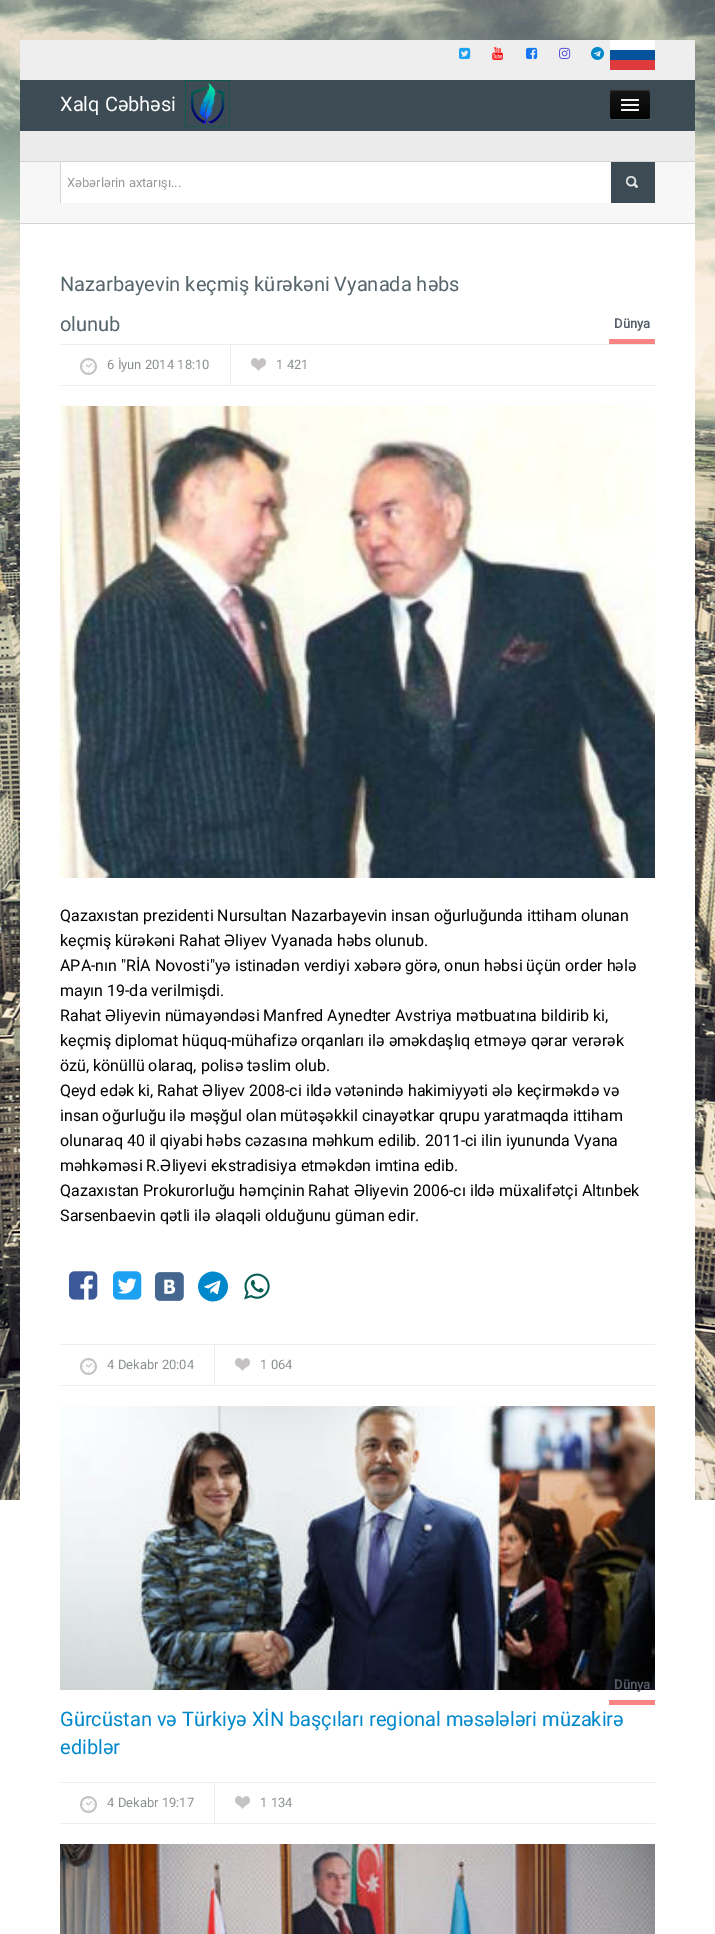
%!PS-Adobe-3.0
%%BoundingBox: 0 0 715 1934
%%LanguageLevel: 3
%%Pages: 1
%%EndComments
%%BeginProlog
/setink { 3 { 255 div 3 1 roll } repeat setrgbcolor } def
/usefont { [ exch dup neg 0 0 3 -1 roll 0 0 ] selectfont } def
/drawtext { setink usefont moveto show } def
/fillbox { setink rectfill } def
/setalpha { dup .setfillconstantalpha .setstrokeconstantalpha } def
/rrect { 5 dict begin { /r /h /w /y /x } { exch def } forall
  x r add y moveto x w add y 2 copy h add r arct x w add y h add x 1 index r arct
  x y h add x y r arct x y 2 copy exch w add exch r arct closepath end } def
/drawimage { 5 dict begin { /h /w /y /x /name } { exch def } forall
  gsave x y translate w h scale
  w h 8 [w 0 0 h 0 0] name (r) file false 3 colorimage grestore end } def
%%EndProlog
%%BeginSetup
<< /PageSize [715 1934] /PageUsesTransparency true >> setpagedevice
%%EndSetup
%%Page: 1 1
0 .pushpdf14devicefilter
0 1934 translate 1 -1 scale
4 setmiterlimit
0 0 715 1934 255 255 255 fillbox
(assets/img1.rgb) 0 0 715 1500 drawimage
20 40 675 40 238 238 238 fillbox
(assets/img2.rgb) 459 47 12 12 drawimage
(assets/img3.rgb) 492 46 11 14 drawimage
(assets/img4.rgb) 526 47 12 12 drawimage
(assets/img5.rgb) 559 47 12 12 drawimage
(assets/img6.rgb) 591 46 13 14 drawimage
610 40 45 10 255 255 255 fillbox
610 50 45 10 5 83 157 fillbox
610 60 45 10 223 58 61 fillbox
20 80 675 51 61 76 84 fillbox
(Xalq Cəbhəsi) 60 111 /Roboto-Regular 20 255 255 255 drawtext
(assets/img7.rgb) 185 80 45 47 drawimage
76 89 97 setink
610 115 moveto 610 121 615 120 619 120 curveto 641 120 lineto 645 120 650 121 650 115 curveto 650 117 648 119 646 119 curveto 614 119 lineto 612 119 610 117 610 115 curveto closepath fill
gsave 610 90 40 29 4 rrect clip newpath
<< /ShadingType 2 /ColorSpace /DeviceRGB /Coords [630 90 630 119] /Extend [true true] /Function << /FunctionType 2 /Domain [0 1] /C0 [0.082 0.082 0.082] /C1 [0.016 0.016 0.016] /N 1 >> >> shfill grestore
0.1 setalpha
255 255 255 setink
614 91 moveto 646 91 lineto 648 91 650 93 650 95 curveto 650 89 645 90 641 90 curveto 619 90 lineto 615 90 610 89 610 95 curveto 610 93 612 91 614 91 curveto closepath fill
1 setalpha
11 11 11 setink
621 100.5 moveto 620 102.5 624.5 102 624.5 102 curveto 635.5 102 lineto 635.5 102 640 102.5 639 100.5 curveto 638 101.5 631.5 101 630 101 curveto 628.5 101 622 101.5 621 100.5 curveto closepath fill
245 245 245 setink
621 99 18 2 1 rrect fill
8 8 8 setink
621 105.5 moveto 620 107.5 624.5 107 624.5 107 curveto 635.5 107 lineto 635.5 107 640 107.5 639 105.5 curveto 638 106.5 631.5 106 630 106 curveto 628.5 106 622 106.5 621 105.5 curveto closepath fill
245 245 245 setink
621 104 18 2 1 rrect fill
621 109 18 2 1 rrect fill
20 131 675 30 235 235 235 fillbox
20 162 675 61 247 247 247 fillbox
20 161 675 1 212 212 212 fillbox
20 223 675 1 212 212 212 fillbox
61 162 550 41 255 255 255 fillbox
60 162 1 41 212 212 212 fillbox
(Xəbərlərin axtarışı...) 67 187 /Roboto-Regular 13 153 153 153 drawtext
(assets/img8.rgb) 611 162 44 41 drawimage
20 224 675 1276 255 255 255 fillbox
60 344 595 1 238 238 238 fillbox
(Nazarbayevin keçmiş kürəkəni Vyanada həbs) 60 291 /Roboto-Regular 20 85 101 107 drawtext
(olunub) 60 331 /Roboto-Regular 20 85 101 107 drawtext
609 339 46 5 250 132 132 fillbox
(Dünya) 614 328 /Roboto-Bold 13 85 95 107 drawtext
60 385 595 1 238 238 238 fillbox
230 345 1 40 238 238 238 fillbox
(assets/img9.rgb) 80 358 17 17 drawimage
(6 İyun 2014 18:10) 107 369 /Roboto-Regular 13 138 143 144 drawtext
(assets/img10.rgb) 251 358 15 13 drawimage
(1 421) 276 369 /Roboto-Regular 13 138 143 144 drawtext
(assets/img11.rgb) 60 406 595 472 drawimage
(Qazaxıstan prezidenti Nursultan Nazarbayevin insan oğurluğunda ittiham olunan) 60 921 /Roboto-Regular 16 0 0 0 drawtext
(keçmiş kürəkəni Rahat Əliyev Vyanada həbs olunub.) 60 946 /Roboto-Regular 16 0 0 0 drawtext
(APA-nın "RİA Novosti"yə istinadən verdiyi xəbərə görə, onun həbsi üçün order hələ) 60 971 /Roboto-Regular 16 0 0 0 drawtext
(mayın 19-da verilmişdi.) 60 996 /Roboto-Regular 16 0 0 0 drawtext
(Rahat Əliyevin nümayəndəsi Manfred Aynedter Avstriya mətbuatına bildirib ki,) 60 1021 /Roboto-Regular 16 0 0 0 drawtext
(keçmiş diplomat hüquq-mühafizə orqanları ilə əməkdaşlıq etməyə qərar verərək) 60 1046 /Roboto-Regular 16 0 0 0 drawtext
(özü, könüllü olaraq, polisə təslim olub.) 60 1071 /Roboto-Regular 16 0 0 0 drawtext
(Qeyd edək ki, Rahat Əliyev 2008-ci ildə vətənində hakimiyyəti ələ keçirməkdə və) 60 1096 /Roboto-Regular 16 0 0 0 drawtext
(insan oğurluğu ilə məşğul olan mütəşəkkil cinayətkar qrupu yaratmaqda ittiham) 60 1121 /Roboto-Regular 16 0 0 0 drawtext
(olunaraq 40 il qiyabi həbs cəzasına məhkum edilib. 2011-ci ilin iyununda Vyana) 60 1146 /Roboto-Regular 16 0 0 0 drawtext
(məhkəməsi R.Əliyevi ekstradisiya etməkdən imtina edib.) 60 1171 /Roboto-Regular 16 0 0 0 drawtext
(Qazaxıstan Prokurorluğu həmçinin Rahat Əliyevin 2006-cı ildə müxalifətçi Altınbek) 60 1196 /Roboto-Regular 16 0 0 0 drawtext
(Sarsenbaevin qətli ilə əlaqəli olduğunu güman edir.) 60 1221 /Roboto-Regular 16 0 0 0 drawtext
(assets/img12.rgb) 69 1271 29 29 drawimage
(assets/img13.rgb) 113 1271 29 29 drawimage
(assets/img14.rgb) 155 1272 29 29 drawimage
(assets/img15.rgb) 198 1271 30 31 drawimage
(assets/img16.rgb) 244 1273 26 27 drawimage
60 1344 595 1 238 238 238 fillbox
60 1385 595 1 238 238 238 fillbox
214 1345 1 40 238 238 238 fillbox
(assets/img9.rgb) 80 1358 17 17 drawimage
(4 Dekabr 20:04) 107 1369 /Roboto-Regular 13 138 143 144 drawtext
(assets/img10.rgb) 235 1358 15 13 drawimage
(1 064) 260 1369 /Roboto-Regular 13 138 143 144 drawtext
(assets/img17.rgb) 60 1406 595 284 drawimage
609 1700 46 5 250 132 132 fillbox
(Dünya) 614 1689 /Roboto-Bold 13 85 95 107 drawtext
(Gürcüstan və Türkiyə XİN başçıları regional məsələləri müzakirə) 60 1726 /Roboto-Regular 20 0 136 204 drawtext
(ediblər) 60 1754 /Roboto-Regular 20 0 136 204 drawtext
60 1782 595 1 238 238 238 fillbox
60 1823 595 1 238 238 238 fillbox
214 1783 1 40 238 238 238 fillbox
(assets/img9.rgb) 80 1796 17 17 drawimage
(4 Dekabr 19:17) 107 1807 /Roboto-Regular 13 138 143 144 drawtext
(assets/img10.rgb) 235 1796 15 13 drawimage
(1 134) 260 1807 /Roboto-Regular 13 138 143 144 drawtext
(assets/img18.rgb) 60 1844 595 90 drawimage
.poppdf14devicefilter showpage
%%EOF
